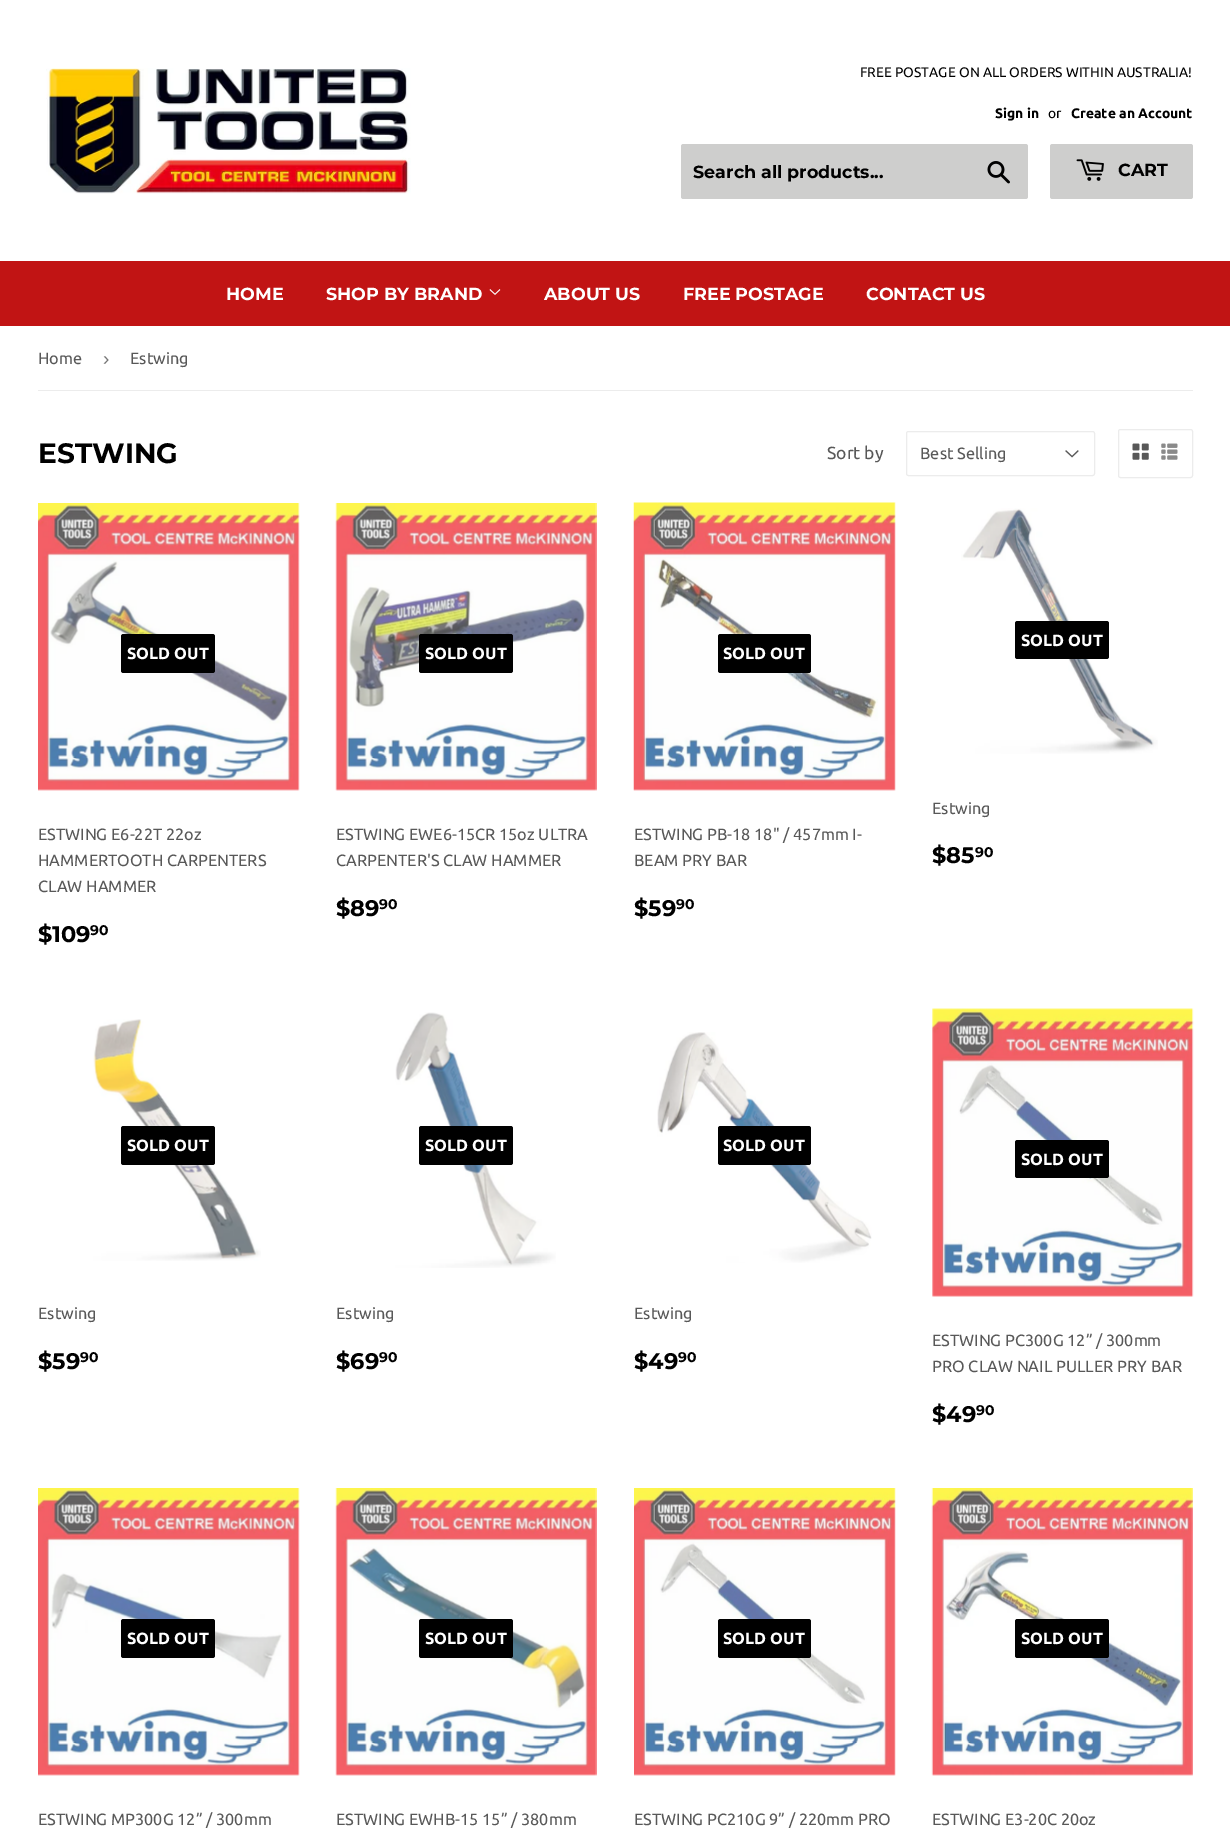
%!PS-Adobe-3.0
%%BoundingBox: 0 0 1230 1845
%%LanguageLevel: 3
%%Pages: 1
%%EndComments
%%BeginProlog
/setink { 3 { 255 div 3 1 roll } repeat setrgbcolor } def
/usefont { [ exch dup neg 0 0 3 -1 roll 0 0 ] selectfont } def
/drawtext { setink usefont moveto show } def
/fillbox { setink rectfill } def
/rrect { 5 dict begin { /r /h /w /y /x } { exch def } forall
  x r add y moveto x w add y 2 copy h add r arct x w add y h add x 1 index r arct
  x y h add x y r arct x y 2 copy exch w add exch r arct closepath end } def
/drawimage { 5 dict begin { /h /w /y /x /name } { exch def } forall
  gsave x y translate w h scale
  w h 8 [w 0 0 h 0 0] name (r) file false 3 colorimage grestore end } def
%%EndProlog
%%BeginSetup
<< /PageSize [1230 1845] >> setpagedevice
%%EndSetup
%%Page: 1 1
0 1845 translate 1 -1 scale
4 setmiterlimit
0 0 1230 1845 255 255 255 fillbox
(assets/img1.rgb) 46 68 365 126 drawimage
(FREE POSTAGE ON ALL ORDERS WITHIN AUSTRALIA!) 860 77 /Ubuntu-Regular 13.8 0 0 0 drawtext
(Sign in) 995 118 /Ubuntu-Bold 13.8 0 0 0 drawtext
(or) 1048 118 /Ubuntu-Regular 13.8 0 0 0 drawtext
(Create an Account) 1071 118 /Ubuntu-Bold 13.8 0 0 0 drawtext
206 206 205 setink
681 144 347 55 2.5 rrect fill
(Search all products...) 693 178 /Montserrat-Thin 17.5 0 0 0 drawtext
(assets/img2.rgb) 987 161 23 23 drawimage
206 206 205 setink
1050 144 143 55 2.5 rrect fill
(assets/img3.rgb) 1076 159 28 22 drawimage
(CART) 1118 176 /Montserrat-Thin 17.5 0 0 0 drawtext
0 261 1230 65 193 20 20 fillbox
(HOME) 226 300 /Montserrat-Thin 17.5 255 255 255 drawtext
(SHOP BY BRAND) 326 300 /Montserrat-Thin 17.5 255 255 255 drawtext
(assets/img4.rgb) 489 289 12 6 drawimage
(ABOUT US) 544 300 /Montserrat-Thin 17.5 255 255 255 drawtext
(FREE POSTAGE) 683 300 /Montserrat-Thin 17.5 255 255 255 drawtext
(CONTACT US) 866 300 /Montserrat-Thin 17.5 255 255 255 drawtext
38 390 1155 1 236 236 236 fillbox
(Home) 38 364 /Ubuntu-Regular 16.25 88 88 88 drawtext
(›) 103 365 /LiberationSans-Regular 19 118 118 118 drawtext
(Estwing) 130 364 /Ubuntu-Regular 16.25 88 88 88 drawtext
(ESTWING) 38 463 /Montserrat-Thin 28 0 0 0 drawtext
(Sort by) 827 459 /Ubuntu-Regular 17.5 88 88 88 drawtext
(assets/img5.rgb) 1065 450 14 8 drawimage
236 236 236 setink
906.5 431.5 188 44 2 rrect stroke
(Best Selling) 920 459 /Ubuntu-Regular 16.25 88 88 88 drawtext
236 236 236 setink
1118.5 429.5 74 48 2 rrect stroke
(assets/img6.rgb) 1132 443 17 17 drawimage
(assets/img7.rgb) 1161 443 17 17 drawimage
(assets/img8.rgb) 38 503 262 288 drawimage
0 0 0 setink
121 634 94 39 2.5 rrect fill
(SOLD OUT) 127 659 /Ubuntu-Bold 16.25 255 255 255 drawtext
(ESTWING E6-22T 22oz) 38 840 /Ubuntu-Regular 16.25 88 88 88 drawtext
(HAMMERTOOTH CARPENTERS) 38 866 /Ubuntu-Regular 16.25 88 88 88 drawtext
(CLAW HAMMER) 38 892 /Ubuntu-Regular 16.25 88 88 88 drawtext
($109) 38 942 /Montserrat-Thin 22.5 0 0 0 drawtext
(90) 90 935 /Montserrat-Thin 14 0 0 0 drawtext
(assets/img9.rgb) 335 503 262 288 drawimage
419 634 94 39 2.5 rrect fill
(SOLD OUT) 425 659 /Ubuntu-Bold 16.25 255 255 255 drawtext
(ESTWING EWE6-15CR 15oz ULTRA) 336 840 /Ubuntu-Regular 16.25 88 88 88 drawtext
(CARPENTER'S CLAW HAMMER) 336 866 /Ubuntu-Regular 16.25 88 88 88 drawtext
($89) 336 916 /Montserrat-Thin 22.5 0 0 0 drawtext
(90) 379 909 /Montserrat-Thin 14 0 0 0 drawtext
(assets/img10.rgb) 633 502 263 289 drawimage
718 634 93 39 2.5 rrect fill
(SOLD OUT) 723 659 /Ubuntu-Bold 16.25 255 255 255 drawtext
(ESTWING PB-18 18" / 457mm I-) 634 840 /Ubuntu-Regular 16.25 88 88 88 drawtext
(BEAM PRY BAR) 634 866 /Ubuntu-Regular 16.25 88 88 88 drawtext
($59) 634 916 /Montserrat-Thin 22.5 0 0 0 drawtext
(90) 676 909 /Montserrat-Thin 14 0 0 0 drawtext
(assets/img11.rgb) 961 508 197 246 drawimage
1015 621 94 38 2.5 rrect fill
(SOLD OUT) 1021 646 /Ubuntu-Bold 16.25 255 255 255 drawtext
(Estwing) 932 814 /Ubuntu-Regular 16.25 88 88 88 drawtext
($85) 932 863 /Montserrat-Thin 22.5 0 0 0 drawtext
(90) 975 857 /Montserrat-Thin 14 0 0 0 drawtext
(assets/img12.rgb) 93 1019 168 242 drawimage
121 1126 94 39 2.5 rrect fill
(SOLD OUT) 127 1151 /Ubuntu-Bold 16.25 255 255 255 drawtext
(Estwing) 38 1319 /Ubuntu-Regular 16.25 88 88 88 drawtext
($59) 38 1369 /Montserrat-Thin 22.5 0 0 0 drawtext
(90) 80 1362 /Montserrat-Thin 14 0 0 0 drawtext
(assets/img13.rgb) 395 1012 161 256 drawimage
419 1126 94 39 2.5 rrect fill
(SOLD OUT) 425 1151 /Ubuntu-Bold 16.25 255 255 255 drawtext
(Estwing) 336 1319 /Ubuntu-Regular 16.25 88 88 88 drawtext
($69) 336 1369 /Montserrat-Thin 22.5 0 0 0 drawtext
(90) 379 1362 /Montserrat-Thin 14 0 0 0 drawtext
(assets/img14.rgb) 657 1032 215 231 drawimage
718 1126 93 39 2.5 rrect fill
(SOLD OUT) 723 1151 /Ubuntu-Bold 16.25 255 255 255 drawtext
(Estwing) 634 1319 /Ubuntu-Regular 16.25 88 88 88 drawtext
($49) 634 1369 /Montserrat-Thin 22.5 0 0 0 drawtext
(90) 678 1362 /Montserrat-Thin 14 0 0 0 drawtext
(assets/img15.rgb) 932 1008 262 289 drawimage
1015 1140 94 38 2.5 rrect fill
(SOLD OUT) 1021 1165 /Ubuntu-Bold 16.25 255 255 255 drawtext
(ESTWING PC300G 12” / 300mm) 932 1346 /Ubuntu-Regular 16.25 88 88 88 drawtext
(PRO CLAW NAIL PULLER PRY BAR) 932 1372 /Ubuntu-Regular 16.25 88 88 88 drawtext
($49) 932 1422 /Montserrat-Thin 22.5 0 0 0 drawtext
(90) 976 1415 /Montserrat-Thin 14 0 0 0 drawtext
(assets/img16.rgb) 38 1488 262 288 drawimage
121 1619 94 39 2.5 rrect fill
(SOLD OUT) 127 1644 /Ubuntu-Bold 16.25 255 255 255 drawtext
(ESTWING MP300G 12” / 300mm) 38 1825 /Ubuntu-Regular 16.25 88 88 88 drawtext
(assets/img17.rgb) 335 1488 262 288 drawimage
0 0 0 setink
419 1619 94 39 2.5 rrect fill
(SOLD OUT) 425 1644 /Ubuntu-Bold 16.25 255 255 255 drawtext
(ESTWING EWHB-15 15” / 380mm) 336 1825 /Ubuntu-Regular 16.25 88 88 88 drawtext
(assets/img18.rgb) 634 1488 262 288 drawimage
0 0 0 setink
718 1619 93 39 2.5 rrect fill
(SOLD OUT) 723 1644 /Ubuntu-Bold 16.25 255 255 255 drawtext
(ESTWING PC210G 9” / 220mm PRO) 634 1825 /Ubuntu-Regular 16.25 88 88 88 drawtext
(assets/img19.rgb) 931 1488 262 288 drawimage
0 0 0 setink
1015 1619 94 39 2.5 rrect fill
(SOLD OUT) 1021 1644 /Ubuntu-Bold 16.25 255 255 255 drawtext
(ESTWING E3-20C 20oz) 932 1825 /Ubuntu-Regular 16.25 88 88 88 drawtext
showpage
%%EOF
